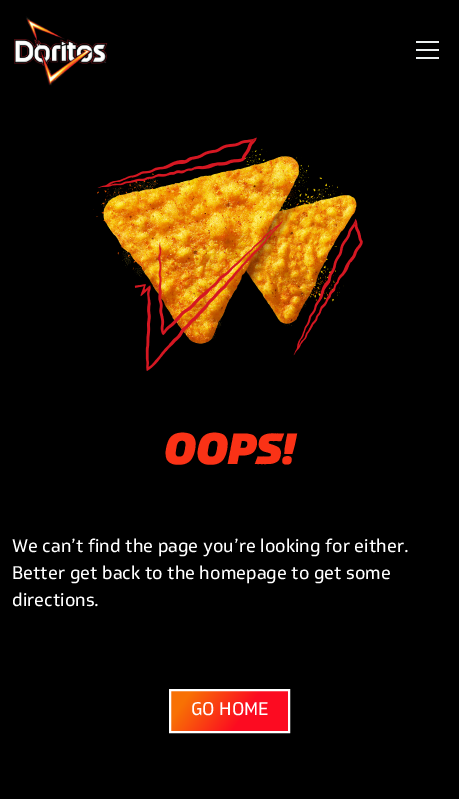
%!PS-Adobe-3.0
%%BoundingBox: 0 0 459 799
%%LanguageLevel: 3
%%Pages: 1
%%EndComments
%%BeginProlog
/setink { 3 { 255 div 3 1 roll } repeat setrgbcolor } def
/usefont { [ exch dup neg 0 0 3 -1 roll 0 0 ] selectfont } def
/drawtext { setink usefont moveto show } def
/fillbox { setink rectfill } def
/drawimage { 5 dict begin { /h /w /y /x /name } { exch def } forall
  gsave x y translate w h scale
  w h 8 [w 0 0 h 0 0] name (r) file false 3 colorimage grestore end } def
%%EndProlog
%%BeginSetup
<< /PageSize [459 799] >> setpagedevice
%%EndSetup
%%Page: 1 1
0 799 translate 1 -1 scale
4 setmiterlimit
0 0 459 799 0 0 0 fillbox
(assets/img1.rgb) 14 16 94 70 drawimage
416 41 23 2 236 240 241 fillbox
416 49 23 2 236 240 241 fillbox
416 57 23 2 236 240 241 fillbox
(assets/img2.rgb) 93 137 270 234 drawimage
(OOPS!) 164 464 /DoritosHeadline-BlackItalic 43 250 50 22 drawtext
(We can’t find the page you’re looking for either.) 12 552 /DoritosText-Regular 18 255 255 255 drawtext
(Better get back to the homepage to get some) 12 579 /DoritosText-Regular 18 255 255 255 drawtext
(directions.) 12 606 /DoritosText-Regular 18 255 255 255 drawtext
gsave 171 691 moveto 288 691 lineto 288 731 lineto 171 731 lineto closepath clip newpath
<< /ShadingType 2 /ColorSpace /DeviceRGB /Coords [181 677 278 745] /Extend [true true] /Function << /FunctionType 3 /Domain [0 1] /Functions [<< /FunctionType 2 /Domain [0 1] /C0 [0.973 0.443 0.016] /C1 [0.973 0.443 0.016] /N 1 >> << /FunctionType 2 /Domain [0 1] /C0 [0.973 0.443 0.016] /C1 [0.988 0.043 0.129] /N 1 >> << /FunctionType 2 /Domain [0 1] /C0 [0.988 0.043 0.129] /C1 [0.988 0.043 0.129] /N 1 >>] /Bounds [0.14 0.62] /Encode [0 1 0 1 0 1] >> >> shfill grestore
2 setlinewidth
170 690 119 42 rectstroke
(GO HOME) 191 715 /DoritosText-Regular 18 255 255 255 drawtext
showpage
%%EOF
